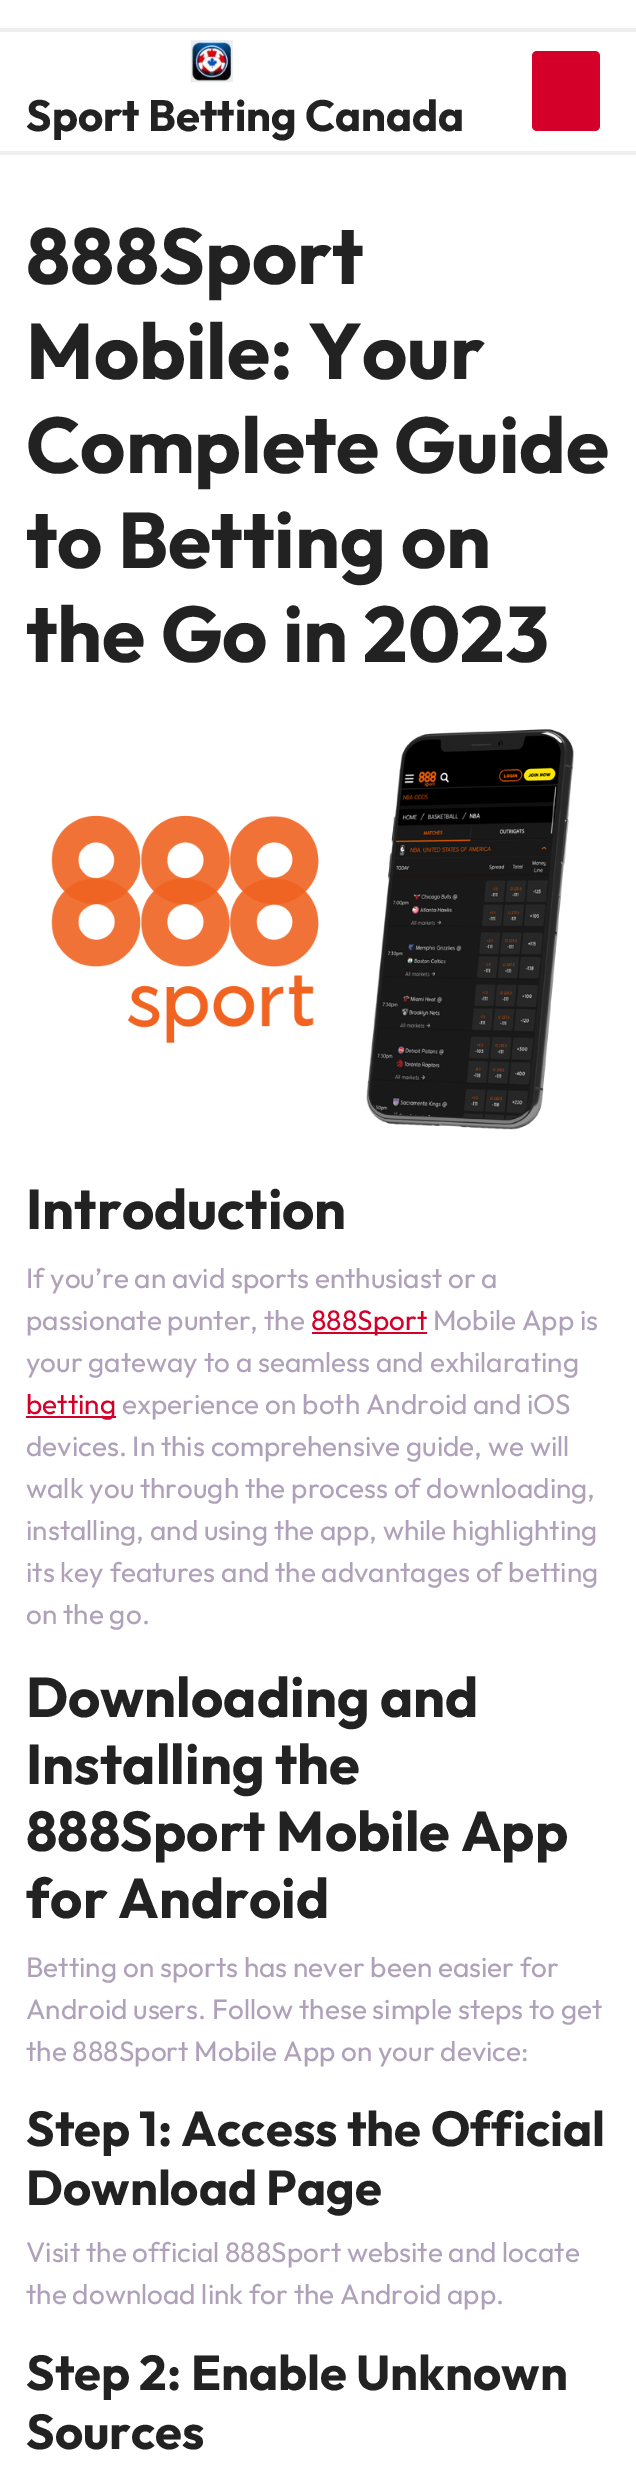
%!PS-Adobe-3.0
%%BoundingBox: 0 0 636 2477
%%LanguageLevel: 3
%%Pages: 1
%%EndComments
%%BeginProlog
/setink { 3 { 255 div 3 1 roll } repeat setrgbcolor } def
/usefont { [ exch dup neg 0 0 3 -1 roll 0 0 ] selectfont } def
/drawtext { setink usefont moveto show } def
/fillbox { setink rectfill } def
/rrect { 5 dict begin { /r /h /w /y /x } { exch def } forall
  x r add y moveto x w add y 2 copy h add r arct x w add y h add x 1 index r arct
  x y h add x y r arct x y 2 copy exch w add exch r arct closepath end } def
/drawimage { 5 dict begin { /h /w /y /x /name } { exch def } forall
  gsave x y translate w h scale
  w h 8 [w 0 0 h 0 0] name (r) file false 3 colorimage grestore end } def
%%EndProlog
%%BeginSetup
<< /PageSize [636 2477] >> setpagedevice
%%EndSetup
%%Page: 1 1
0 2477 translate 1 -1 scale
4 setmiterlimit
0 0 636 2477 255 255 255 fillbox
0 28 636 4 239 239 239 fillbox
0 151 636 4 239 239 239 fillbox
(assets/img1.rgb) 190 40 43 43 drawimage
(Sport Betting Canada) 26 131 /Outfit-Bold 43.75 34 34 34 drawtext
213 0 41 setink
532 51 68 80 5 rrect fill
(888Sport) 26 284 /Outfit-Bold 78.75 34 34 34 drawtext
(Mobile: Your) 26 379 /Outfit-Bold 78.75 34 34 34 drawtext
(Complete Guide) 26 473 /Outfit-Bold 78.75 34 34 34 drawtext
(to Betting on) 26 568 /Outfit-Bold 78.75 34 34 34 drawtext
(the Go in 2023) 26 662 /Outfit-Bold 78.75 34 34 34 drawtext
(assets/img2.rgb) 51 729 523 401 drawimage
(Introduction) 26 1229 /Outfit-Bold 56 34 34 34 drawtext
(If you’re an avid sports enthusiast or a) 26 1288 /Outfit-Regular 28 176 161 187 drawtext
(passionate punter, the) 26 1330 /Outfit-Regular 28 176 161 187 drawtext
312 1332 115 2 213 0 41 fillbox
(888Sport) 311 1330 /Outfit-Regular 28 213 0 41 drawtext
(Mobile App is) 433 1330 /Outfit-Regular 28 176 161 187 drawtext
(your gateway to a seamless and exhilarating) 26 1372 /Outfit-Regular 28 176 161 187 drawtext
26 1416 90 2 213 0 41 fillbox
(betting) 26 1414 /Outfit-Regular 28 213 0 41 drawtext
(experience on both Android and iOS) 122 1414 /Outfit-Regular 28 176 161 187 drawtext
(devices. In this comprehensive guide, we will) 26 1456 /Outfit-Regular 28 176 161 187 drawtext
(walk you through the process of downloading,) 26 1498 /Outfit-Regular 28 176 161 187 drawtext
(installing, and using the app, while highlighting) 26 1540 /Outfit-Regular 28 176 161 187 drawtext
(its key features and the advantages of betting) 26 1582 /Outfit-Regular 28 176 161 187 drawtext
(on the go.) 26 1624 /Outfit-Regular 28 176 161 187 drawtext
(Downloading and) 26 1717 /Outfit-Bold 56 34 34 34 drawtext
(Installing the) 26 1784 /Outfit-Bold 56 34 34 34 drawtext
(888Sport Mobile App) 26 1851 /Outfit-Bold 56 34 34 34 drawtext
(for Android) 26 1918 /Outfit-Bold 56 34 34 34 drawtext
(Betting on sports has never been easier for) 26 1977 /Outfit-Regular 28 176 161 187 drawtext
(Android users. Follow these simple steps to get) 26 2019 /Outfit-Regular 28 176 161 187 drawtext
(the 888Sport Mobile App on your device:) 26 2061 /Outfit-Regular 28 176 161 187 drawtext
(Step 1: Access the Official) 26 2146 /Outfit-Bold 49 34 34 34 drawtext
(Download Page) 26 2205 /Outfit-Bold 49 34 34 34 drawtext
(Visit the official 888Sport website and locate) 26 2262 /Outfit-Regular 28 176 161 187 drawtext
(the download link for the Android app.) 26 2304 /Outfit-Regular 28 176 161 187 drawtext
(Step 2: Enable Unknown) 26 2390 /Outfit-Bold 49 34 34 34 drawtext
(Sources) 26 2449 /Outfit-Bold 49 34 34 34 drawtext
showpage
%%EOF
